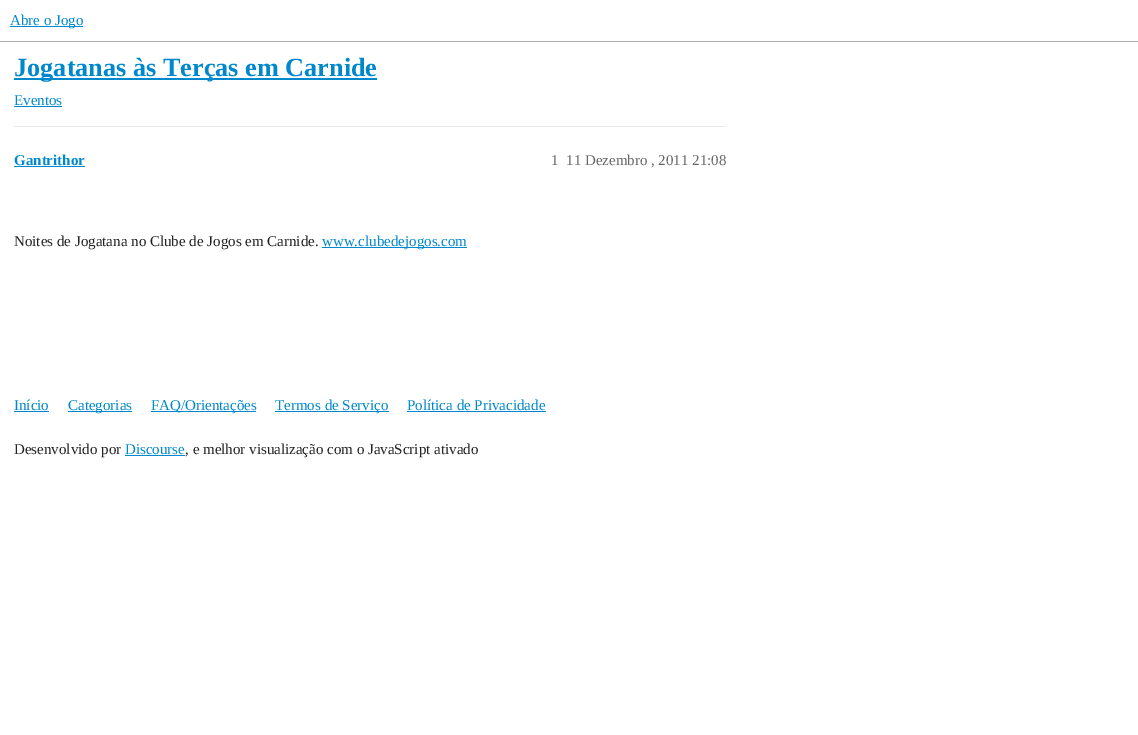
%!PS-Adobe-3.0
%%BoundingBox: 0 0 1138 735
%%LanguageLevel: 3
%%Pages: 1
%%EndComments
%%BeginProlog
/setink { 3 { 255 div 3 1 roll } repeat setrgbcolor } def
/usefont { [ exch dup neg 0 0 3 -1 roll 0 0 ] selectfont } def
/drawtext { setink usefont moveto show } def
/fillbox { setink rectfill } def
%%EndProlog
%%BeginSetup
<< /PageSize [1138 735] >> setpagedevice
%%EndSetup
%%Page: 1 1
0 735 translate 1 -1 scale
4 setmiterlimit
0 0 1138 735 255 255 255 fillbox
0 41 1138 1 175 175 175 fillbox
10 26 73 1 0 136 204 fillbox
(Abre o Jogo) 10 25 /LiberationSerif-Regular 15 0 136 204 drawtext
14 78 363 2 0 136 204 fillbox
(Jogatanas às Terças em Carnide) 14 76 /LiberationSerif-Bold 26.25 0 136 204 drawtext
(Eventos) 14 105 /LiberationSerif-Regular 15 0 136 204 drawtext
14 106 48 1 0 136 204 fillbox
14 126 712 1 233 233 233 fillbox
(Gantrithor) 14 165 /LiberationSerif-Bold 15 0 136 204 drawtext
14 166 71 1 0 136 204 fillbox
(1) 551 165 /LiberationSerif-Regular 15 102 102 102 drawtext
(11 Dezembro , 2011 21:08) 566 165 /LiberationSerif-Regular 15 102 102 102 drawtext
(Noites de Jogatana no Clube de Jogos em Carnide.) 14 246 /LiberationSerif-Regular 15 34 34 34 drawtext
322 247 145 1 0 136 204 fillbox
(www.clubedejogos.com) 322 246 /LiberationSerif-Regular 15 0 136 204 drawtext
(Início) 14 410 /LiberationSerif-Regular 15 0 136 204 drawtext
14 411 35 1 0 136 204 fillbox
68 411 64 1 0 136 204 fillbox
(Categorias) 68 410 /LiberationSerif-Regular 15 0 136 204 drawtext
151 411 105 1 0 136 204 fillbox
(FAQ/Orientações) 151 410 /LiberationSerif-Regular 15 0 136 204 drawtext
275 411 114 1 0 136 204 fillbox
(Termos de Serviço) 275 410 /LiberationSerif-Regular 15 0 136 204 drawtext
(Política de Privacidade) 407 410 /LiberationSerif-Regular 15 0 136 204 drawtext
407 411 139 1 0 136 204 fillbox
(Desenvolvido por) 14 454 /LiberationSerif-Regular 15 34 34 34 drawtext
(Discourse) 125 454 /LiberationSerif-Regular 15 0 136 204 drawtext
125 455 60 1 0 136 204 fillbox
(, e melhor visualização com o JavaScript ativado) 185 454 /LiberationSerif-Regular 15 34 34 34 drawtext
showpage
%%EOF
